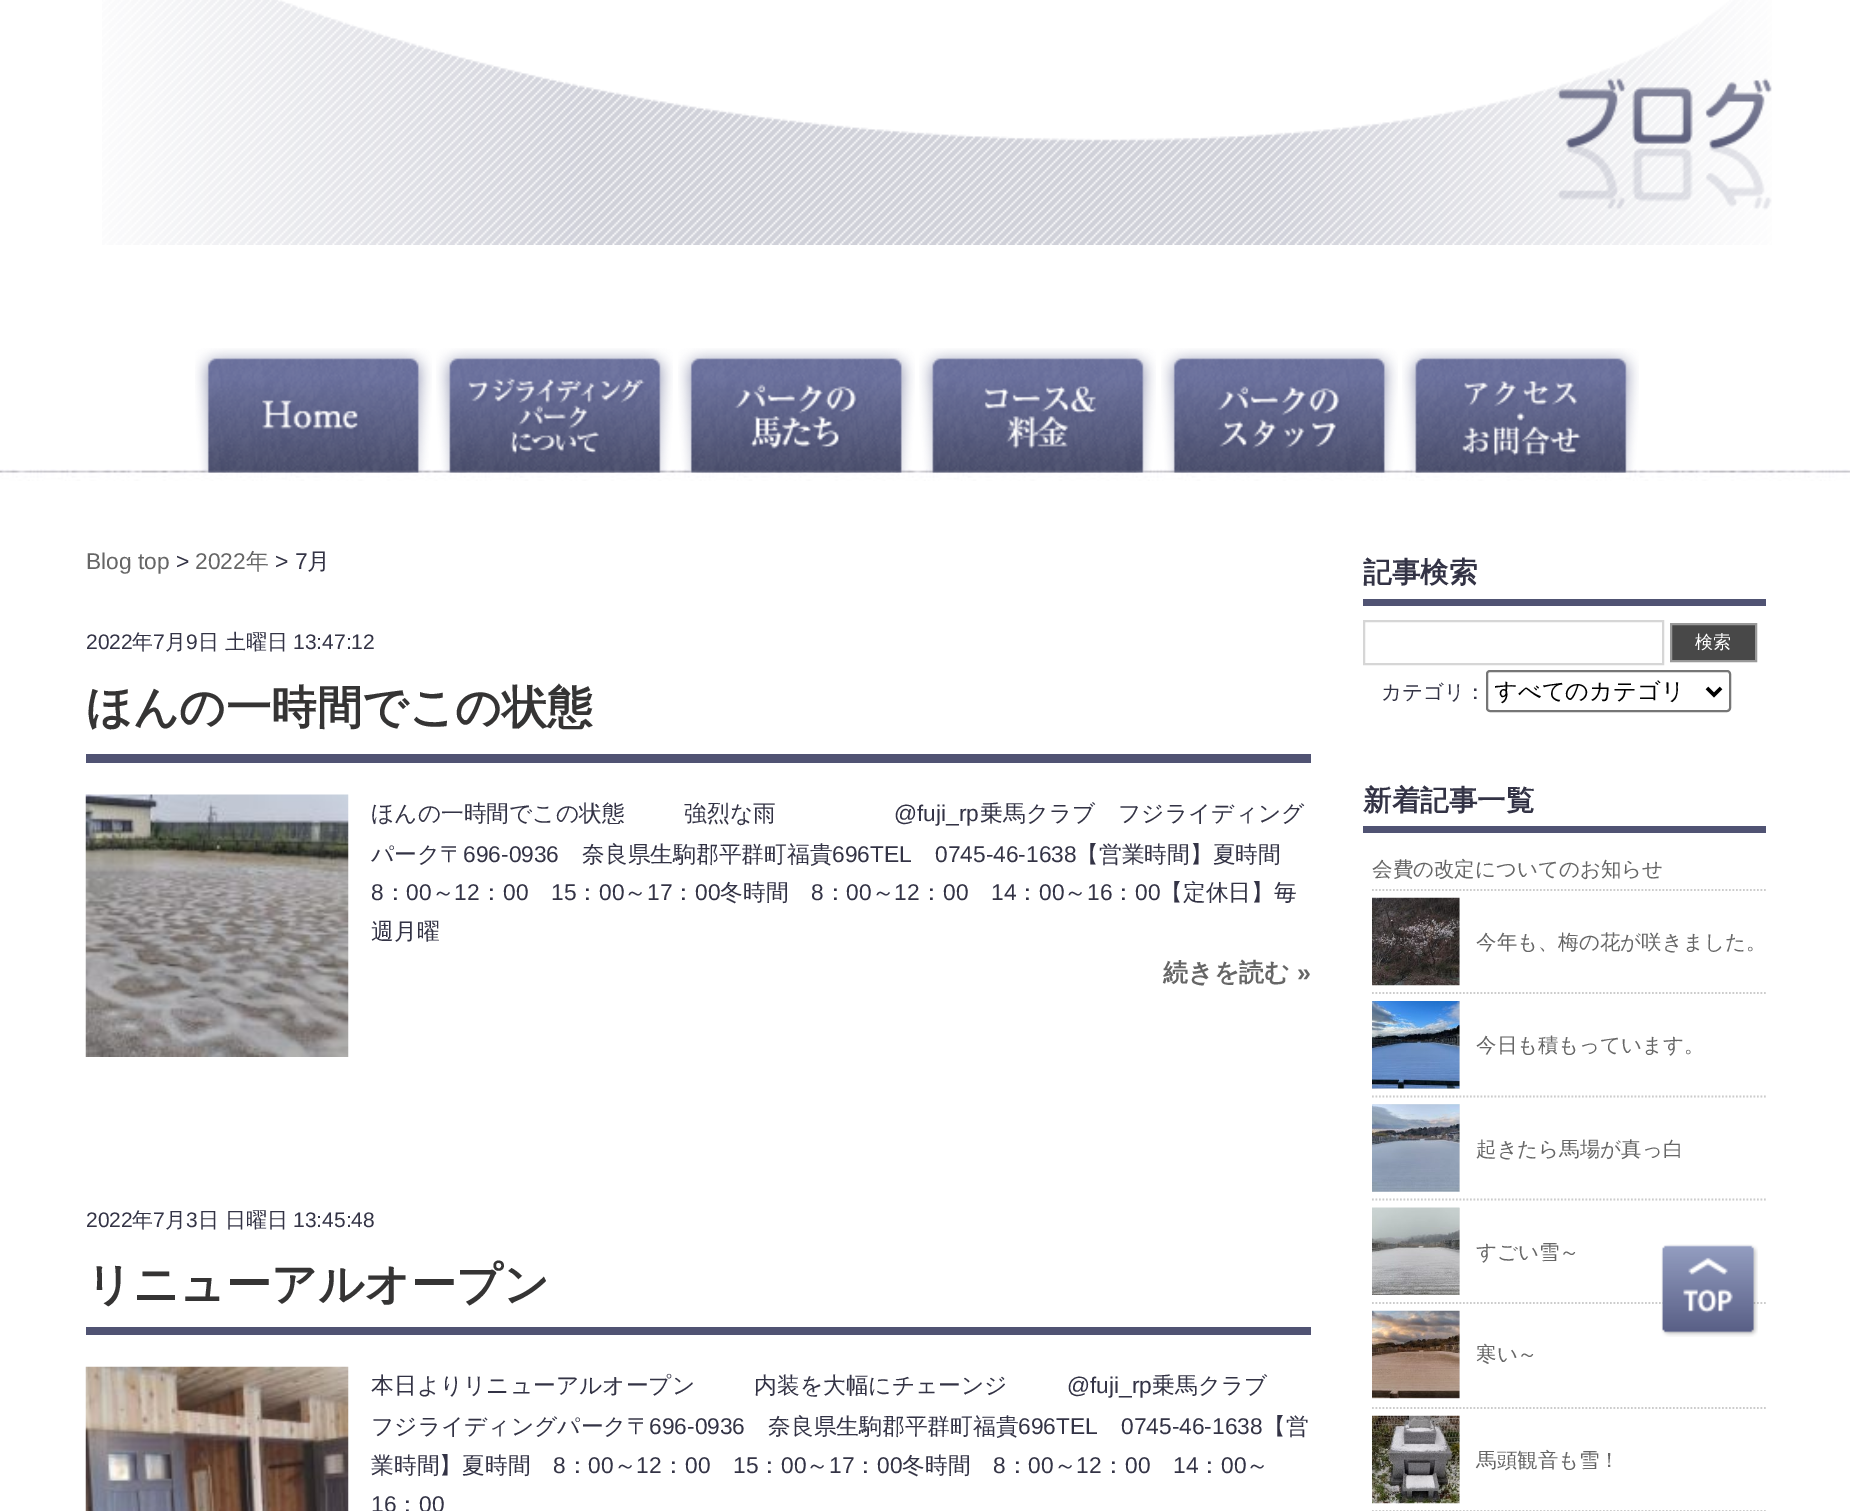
%!PS-Adobe-3.0
%%BoundingBox: 0 0 1850 1511
%%LanguageLevel: 3
%%Pages: 1
%%EndComments
%%BeginProlog
/setink { 3 { 255 div 3 1 roll } repeat setrgbcolor } def
/usefont { [ exch dup neg 0 0 3 -1 roll 0 0 ] selectfont } def
/drawtext { setink usefont moveto show } def
/fillbox { setink rectfill } def
/rrect { 5 dict begin { /r /h /w /y /x } { exch def } forall
  x r add y moveto x w add y 2 copy h add r arct x w add y h add x 1 index r arct
  x y h add x y r arct x y 2 copy exch w add exch r arct closepath end } def
/drawimage { 5 dict begin { /h /w /y /x /name } { exch def } forall
  gsave x y translate w h scale
  w h 8 [w 0 0 h 0 0] name (r) file false 3 colorimage grestore end } def
%%EndProlog
%%BeginSetup
<< /PageSize [1850 1511] >> setpagedevice
%%EndSetup
%%Page: 1 1
0 1511 translate 1 -1 scale
4 setmiterlimit
0 0 1850 1511 255 255 255 fillbox
(assets/img1.rgb) 0 469 1850 12 drawimage
(assets/img2.rgb) 102 0 1670 245 drawimage
(assets/img3.rgb) 195 348 237 125 drawimage
(assets/img4.rgb) 436 348 237 125 drawimage
(assets/img5.rgb) 678 348 237 125 drawimage
(assets/img6.rgb) 919 348 237 125 drawimage
(assets/img7.rgb) 1161 348 237 125 drawimage
(assets/img8.rgb) 1402 348 237 125 drawimage
(Blog top) 86 569 /LiberationSans-Regular 22.75 102 102 102 drawtext
(>) 176 569 /LiberationSans-Regular 22.75 51 51 69 drawtext
(2022) 195 569 /LiberationSans-Regular 22.75 102 102 102 drawtext
(年) 246 569 /WenQuanYiZenHei-Medium 22.75 102 102 102 drawtext
(> 7) 275 569 /LiberationSans-Regular 22.75 51 51 69 drawtext
(月) 307 569 /WenQuanYiZenHei-Medium 22.75 51 51 69 drawtext
(2022) 86 649 /LiberationSans-Regular 21 51 51 69 drawtext
(年) 132 649 /WenQuanYiZenHei-Medium 21 51 51 69 drawtext
(7) 153 649 /LiberationSans-Regular 21 51 51 69 drawtext
(月) 165 649 /WenQuanYiZenHei-Medium 21 51 51 69 drawtext
(9) 186 649 /LiberationSans-Regular 21 51 51 69 drawtext
(日 土曜日) 198 649 /WenQuanYiZenHei-Medium 21 51 51 69 drawtext
(13:47:12) 293 649 /LiberationSans-Regular 21 51 51 69 drawtext
86 754 1225 9 80 83 115 fillbox
(ほんの一時間でこの状態) 86 723 /WenQuanYiZenHei-Bold 45.5 53 52 52 drawtext
(assets/img9.rgb) 85 794 264 263 drawimage
(ほんの一時間でこの状態) 371 821 /WenQuanYiZenHei-Medium 22.75 51 51 69 drawtext
(強烈な雨) 684 821 /WenQuanYiZenHei-Medium 22.75 51 51 69 drawtext
(@fuji_rp) 894 821 /LiberationSans-Regular 22.75 51 51 69 drawtext
(乗馬クラブ　フジライディング) 980 821 /WenQuanYiZenHei-Medium 22.75 51 51 69 drawtext
(パーク〒) 371 862 /WenQuanYiZenHei-Medium 22.75 51 51 69 drawtext
(696-0936) 463 862 /LiberationSans-Regular 22.75 51 51 69 drawtext
(奈良県生駒郡平群町福貴) 582 862 /WenQuanYiZenHei-Medium 22.75 51 51 69 drawtext
(696TEL) 832 862 /LiberationSans-Regular 22.75 51 51 69 drawtext
(0745-46-1638) 935 862 /LiberationSans-Regular 22.75 51 51 69 drawtext
(【営業時間】夏時間) 1076 862 /WenQuanYiZenHei-Medium 22.75 51 51 69 drawtext
(8) 371 900 /LiberationSans-Regular 22.75 51 51 69 drawtext
(：) 384 900 /WenQuanYiZenHei-Medium 22.75 51 51 69 drawtext
(00) 406 900 /LiberationSans-Regular 22.75 51 51 69 drawtext
(～) 432 900 /WenQuanYiZenHei-Medium 22.75 51 51 69 drawtext
(12) 454 900 /LiberationSans-Regular 22.75 51 51 69 drawtext
(：) 480 900 /WenQuanYiZenHei-Medium 22.75 51 51 69 drawtext
(00) 503 900 /LiberationSans-Regular 22.75 51 51 69 drawtext
(15) 551 900 /LiberationSans-Regular 22.75 51 51 69 drawtext
(：) 576 900 /WenQuanYiZenHei-Medium 22.75 51 51 69 drawtext
(00) 599 900 /LiberationSans-Regular 22.75 51 51 69 drawtext
(～) 624 900 /WenQuanYiZenHei-Medium 22.75 51 51 69 drawtext
(17) 647 900 /LiberationSans-Regular 22.75 51 51 69 drawtext
(：) 672 900 /WenQuanYiZenHei-Medium 22.75 51 51 69 drawtext
(00) 695 900 /LiberationSans-Regular 22.75 51 51 69 drawtext
(冬時間) 720 900 /WenQuanYiZenHei-Medium 22.75 51 51 69 drawtext
(8) 811 900 /LiberationSans-Regular 22.75 51 51 69 drawtext
(：) 824 900 /WenQuanYiZenHei-Medium 22.75 51 51 69 drawtext
(00) 846 900 /LiberationSans-Regular 22.75 51 51 69 drawtext
(～) 872 900 /WenQuanYiZenHei-Medium 22.75 51 51 69 drawtext
(12) 894 900 /LiberationSans-Regular 22.75 51 51 69 drawtext
(：) 920 900 /WenQuanYiZenHei-Medium 22.75 51 51 69 drawtext
(00) 943 900 /LiberationSans-Regular 22.75 51 51 69 drawtext
(14) 991 900 /LiberationSans-Regular 22.75 51 51 69 drawtext
(：) 1016 900 /WenQuanYiZenHei-Medium 22.75 51 51 69 drawtext
(00) 1039 900 /LiberationSans-Regular 22.75 51 51 69 drawtext
(～) 1064 900 /WenQuanYiZenHei-Medium 22.75 51 51 69 drawtext
(16) 1087 900 /LiberationSans-Regular 22.75 51 51 69 drawtext
(：) 1112 900 /WenQuanYiZenHei-Medium 22.75 51 51 69 drawtext
(00) 1135 900 /LiberationSans-Regular 22.75 51 51 69 drawtext
(【定休日】毎) 1160 900 /WenQuanYiZenHei-Medium 22.75 51 51 69 drawtext
(週月曜) 371 939 /WenQuanYiZenHei-Medium 22.75 51 51 69 drawtext
(続きを読む) 1163 981 /WenQuanYiZenHei-Bold 25 102 102 102 drawtext
(») 1297 981 /LiberationSans-Bold 25 102 102 102 drawtext
(2022) 86 1227 /LiberationSans-Regular 21 51 51 69 drawtext
(年) 132 1227 /WenQuanYiZenHei-Medium 21 51 51 69 drawtext
(7) 153 1227 /LiberationSans-Regular 21 51 51 69 drawtext
(月) 165 1227 /WenQuanYiZenHei-Medium 21 51 51 69 drawtext
(3) 186 1227 /LiberationSans-Regular 21 51 51 69 drawtext
(日 日曜日) 198 1227 /WenQuanYiZenHei-Medium 21 51 51 69 drawtext
(13:45:48) 293 1227 /LiberationSans-Regular 21 51 51 69 drawtext
86 1327 1225 8 80 83 115 fillbox
(リニューアルオープン) 86 1300 /WenQuanYiZenHei-Bold 45.5 53 52 52 drawtext
(assets/img10.rgb) 85 1366 264 145 drawimage
(本日よりリニューアルオープン) 371 1393 /WenQuanYiZenHei-Medium 22.75 51 51 69 drawtext
(内装を大幅にチェーンジ) 754 1393 /WenQuanYiZenHei-Medium 22.75 51 51 69 drawtext
(@fuji_rp) 1067 1393 /LiberationSans-Regular 22.75 51 51 69 drawtext
(乗馬クラブ) 1152 1393 /WenQuanYiZenHei-Medium 22.75 51 51 69 drawtext
(フジライディングパーク〒) 371 1434 /WenQuanYiZenHei-Medium 22.75 51 51 69 drawtext
(696-0936) 649 1434 /LiberationSans-Regular 22.75 51 51 69 drawtext
(奈良県生駒郡平群町福貴) 768 1434 /WenQuanYiZenHei-Medium 22.75 51 51 69 drawtext
(696TEL) 1018 1434 /LiberationSans-Regular 22.75 51 51 69 drawtext
(0745-46-1638) 1121 1434 /LiberationSans-Regular 22.75 51 51 69 drawtext
(【営) 1263 1434 /WenQuanYiZenHei-Medium 22.75 51 51 69 drawtext
(業時間】夏時間) 371 1473 /WenQuanYiZenHei-Medium 22.75 51 51 69 drawtext
(8) 553 1473 /LiberationSans-Regular 22.75 51 51 69 drawtext
(：) 566 1473 /WenQuanYiZenHei-Medium 22.75 51 51 69 drawtext
(00) 588 1473 /LiberationSans-Regular 22.75 51 51 69 drawtext
(～) 614 1473 /WenQuanYiZenHei-Medium 22.75 51 51 69 drawtext
(12) 636 1473 /LiberationSans-Regular 22.75 51 51 69 drawtext
(：) 662 1473 /WenQuanYiZenHei-Medium 22.75 51 51 69 drawtext
(00) 685 1473 /LiberationSans-Regular 22.75 51 51 69 drawtext
(15) 733 1473 /LiberationSans-Regular 22.75 51 51 69 drawtext
(：) 758 1473 /WenQuanYiZenHei-Medium 22.75 51 51 69 drawtext
(00) 781 1473 /LiberationSans-Regular 22.75 51 51 69 drawtext
(～) 806 1473 /WenQuanYiZenHei-Medium 22.75 51 51 69 drawtext
(17) 829 1473 /LiberationSans-Regular 22.75 51 51 69 drawtext
(：) 854 1473 /WenQuanYiZenHei-Medium 22.75 51 51 69 drawtext
(00) 877 1473 /LiberationSans-Regular 22.75 51 51 69 drawtext
(冬時間) 902 1473 /WenQuanYiZenHei-Medium 22.75 51 51 69 drawtext
(8) 993 1473 /LiberationSans-Regular 22.75 51 51 69 drawtext
(：) 1006 1473 /WenQuanYiZenHei-Medium 22.75 51 51 69 drawtext
(00) 1028 1473 /LiberationSans-Regular 22.75 51 51 69 drawtext
(～) 1054 1473 /WenQuanYiZenHei-Medium 22.75 51 51 69 drawtext
(12) 1076 1473 /LiberationSans-Regular 22.75 51 51 69 drawtext
(：) 1102 1473 /WenQuanYiZenHei-Medium 22.75 51 51 69 drawtext
(00) 1125 1473 /LiberationSans-Regular 22.75 51 51 69 drawtext
(14) 1173 1473 /LiberationSans-Regular 22.75 51 51 69 drawtext
(：) 1198 1473 /WenQuanYiZenHei-Medium 22.75 51 51 69 drawtext
(00) 1221 1473 /LiberationSans-Regular 22.75 51 51 69 drawtext
(～) 1246 1473 /WenQuanYiZenHei-Medium 22.75 51 51 69 drawtext
(16) 371 1512 /LiberationSans-Regular 22.75 51 51 69 drawtext
(：) 396 1512 /WenQuanYiZenHei-Medium 22.75 51 51 69 drawtext
(00) 419 1512 /LiberationSans-Regular 22.75 51 51 69 drawtext
1363 599 403 7 80 83 115 fillbox
(記事検索) 1363 582 /WenQuanYiZenHei-Bold 28.5 51 51 69 drawtext
214 214 214 setink
2 setlinewidth
1364 621 299 43 rectstroke
72 72 72 setink
1671 624 moveto 1756 624 lineto 1756 661 lineto 1671 661 lineto closepath gsave fill grestore
153 153 153 setink
stroke
(検索) 1695 648 /WenQuanYiZenHei-Medium 18 255 255 255 drawtext
(カテゴリ：) 1381 699 /WenQuanYiZenHei-Medium 20.5 51 51 69 drawtext
118 118 118 setink
1487 671 243 40 3 rrect stroke
0 0 0 setink
3.5 setlinewidth
1707 688 moveto 1714 695 lineto 1721 688 lineto stroke
gsave
1495 677 206 30 rectclip
(すべてのカテゴリ) 1494 699 /WenQuanYiZenHei-Medium 23.25 0 0 0 drawtext
grestore
1363 826 403 7 80 83 115 fillbox
(新着記事一覧) 1363 810 /WenQuanYiZenHei-Bold 28.5 51 51 69 drawtext
204 204 204 setink
1.8 setlinewidth
[1.75 1.75] 0 setdash
1372 890 moveto 1766 890 lineto stroke
(会費の改定についてのお知らせ) 1372 876 /WenQuanYiZenHei-Medium 20.5 102 102 102 drawtext
204 204 204 setink
1372 993 moveto 1766 993 lineto stroke
1459 898 1 87 234 234 234 fillbox
(assets/img11.rgb) 1372 897 88 89 drawimage
(今年も、梅の花が咲きました。) 1476 949 /WenQuanYiZenHei-Medium 20.5 102 102 102 drawtext
204 204 204 setink
1372 1096.5 moveto 1766 1096.5 lineto stroke
1372 1001 88 88 234 234 234 fillbox
(assets/img12.rgb) 1372 1001 88 88 drawimage
(今日も積もっています。) 1476 1052 /WenQuanYiZenHei-Medium 20.5 102 102 102 drawtext
204 204 204 setink
1372 1199.5 moveto 1766 1199.5 lineto stroke
1372 1104 88 88 234 234 234 fillbox
(assets/img13.rgb) 1372 1104 88 88 drawimage
(起きたら馬場が真っ白) 1476 1156 /WenQuanYiZenHei-Medium 20.5 102 102 102 drawtext
204 204 204 setink
1372 1303 moveto 1766 1303 lineto stroke
1459 1208 1 87 234 234 234 fillbox
(assets/img14.rgb) 1372 1207 88 88 drawimage
(すごい雪～) 1476 1259 /WenQuanYiZenHei-Medium 20.5 102 102 102 drawtext
204 204 204 setink
1372 1408 moveto 1766 1408 lineto stroke
1459 1311 1 87 234 234 234 fillbox
(assets/img15.rgb) 1372 1310 88 89 drawimage
(寒い～) 1476 1361 /WenQuanYiZenHei-Medium 20.5 102 102 102 drawtext
204 204 204 setink
1372 1511 moveto 1766 1511 lineto stroke
1459 1416 1 87 234 234 234 fillbox
(assets/img16.rgb) 1372 1415 88 89 drawimage
(馬頭観音も雪！) 1476 1467 /WenQuanYiZenHei-Medium 20.5 102 102 102 drawtext
(assets/img17.rgb) 1661 1244 97 93 drawimage
showpage
%%EOF
